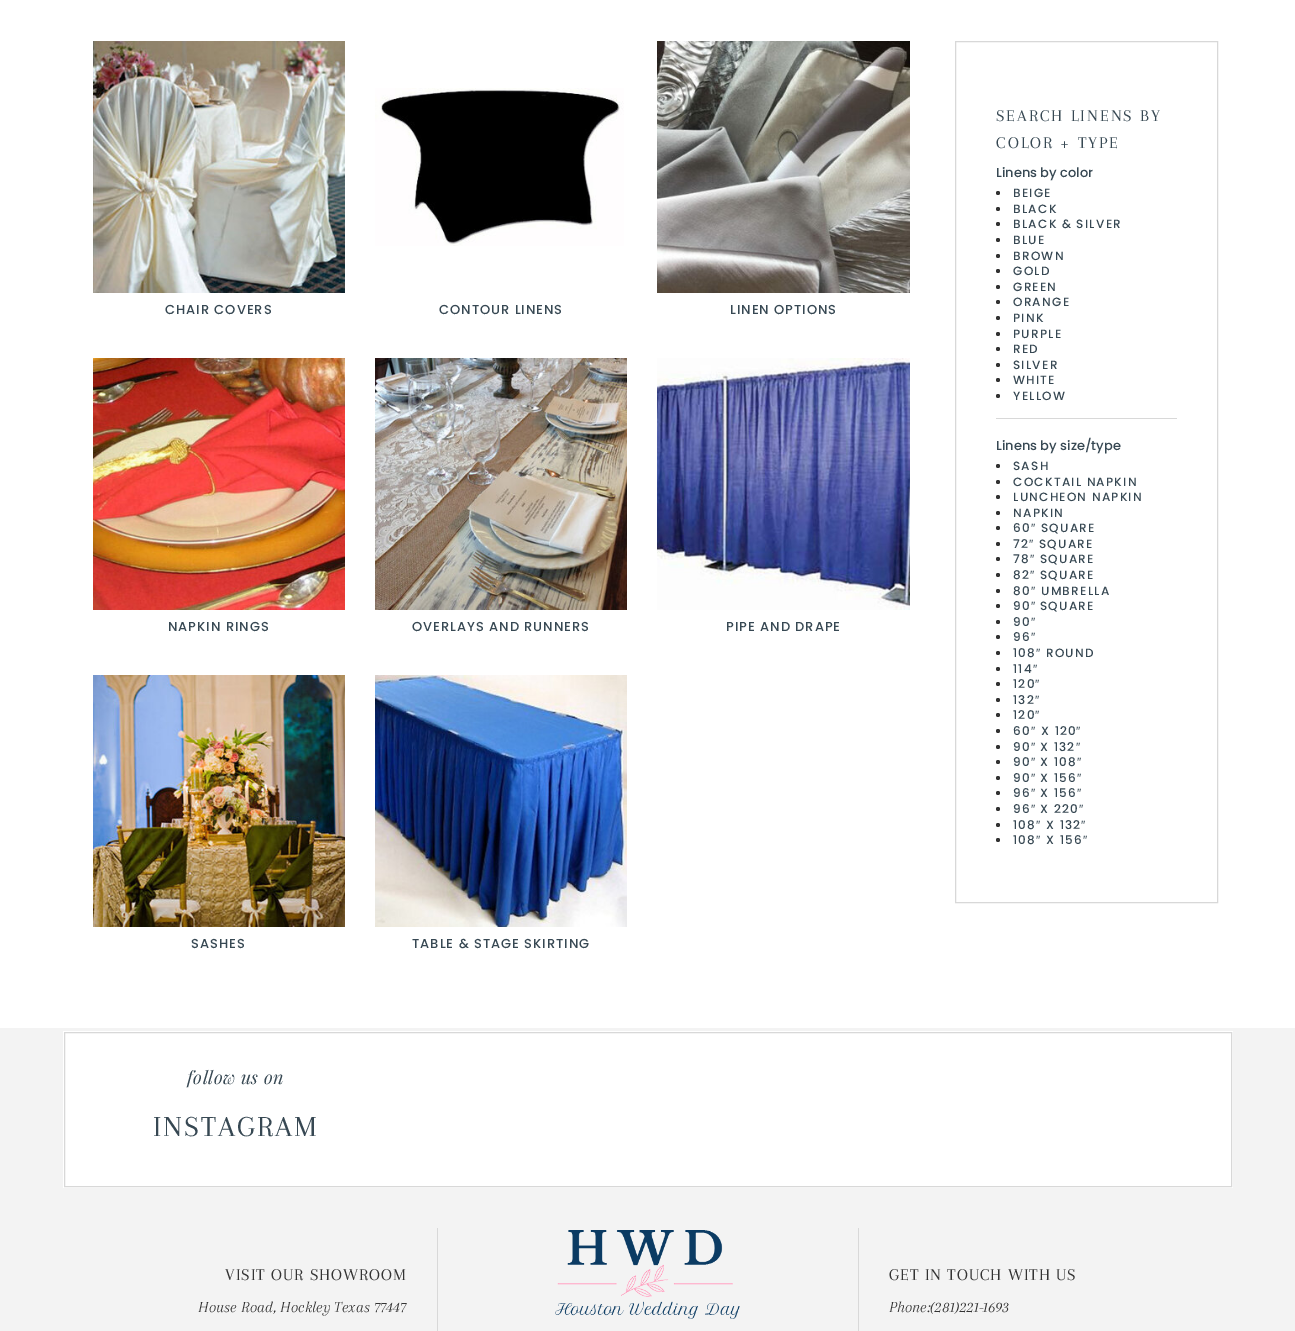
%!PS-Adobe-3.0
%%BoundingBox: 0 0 1295 1331
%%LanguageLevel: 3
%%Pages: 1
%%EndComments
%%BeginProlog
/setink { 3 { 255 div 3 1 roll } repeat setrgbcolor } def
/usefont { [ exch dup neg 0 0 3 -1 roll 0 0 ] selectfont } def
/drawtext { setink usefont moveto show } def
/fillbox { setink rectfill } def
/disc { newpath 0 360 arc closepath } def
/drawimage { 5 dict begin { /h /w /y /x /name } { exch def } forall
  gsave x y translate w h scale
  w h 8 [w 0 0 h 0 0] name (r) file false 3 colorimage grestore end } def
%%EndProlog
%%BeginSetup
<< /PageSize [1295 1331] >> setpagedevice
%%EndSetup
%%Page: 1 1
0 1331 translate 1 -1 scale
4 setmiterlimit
0 0 1295 1331 255 255 255 fillbox
(assets/img1.rgb) 93 41 252 252 drawimage
/Poppins-Medium 13 usefont
55 72 83 setink
165 314 moveto 1 0 (CHAIR COVERS) ashow
(assets/img2.rgb) 375 88 249 158 drawimage
439 314 moveto 1 0 (CONTOUR LINENS) ashow
(assets/img3.rgb) 657 41 253 252 drawimage
730 314 moveto 1 0 (LINEN OPTIONS) ashow
(assets/img4.rgb) 93 358 252 252 drawimage
168 631 moveto 1 0 (NAPKIN RINGS) ashow
(assets/img5.rgb) 375 358 252 252 drawimage
412 631 moveto 1 0 (OVERLAYS AND RUNNERS) ashow
(assets/img6.rgb) 657 358 253 252 drawimage
726 631 moveto 1 0 (PIPE AND DRAPE) ashow
(assets/img7.rgb) 93 675 252 252 drawimage
191 948 moveto 1 0 (SASHES) ashow
(assets/img8.rgb) 375 675 252 252 drawimage
412 948 moveto 1 0 (TABLE & STAGE SKIRTING) ashow
216 216 216 setink
955.5 41.5 262 861 rectstroke
/Arapey-Regular 17 usefont
55 72 83 setink
996 121 moveto 2 0 (SEARCH LINENS BY) ashow
996 148 moveto 2 0 (COLOR + TYPE) ashow
(Linens by color) 996 177 /Poppins-Medium 13 55 72 83 drawtext
51 51 51 setink
998 193 2 disc fill
/Poppins-Medium 12 usefont
55 72 83 setink
1013 197 moveto 1.25 0 (BEIGE) ashow
51 51 51 setink
998 209 2 disc fill
55 72 83 setink
1013 213 moveto 1.25 0 (BLACK) ashow
51 51 51 setink
998 224 2 disc fill
55 72 83 setink
1013 228 moveto 1.25 0 (BLACK & SILVER) ashow
51 51 51 setink
998 240 2 disc fill
55 72 83 setink
1013 244 moveto 1.25 0 (BLUE) ashow
51 51 51 setink
998 256 2 disc fill
55 72 83 setink
1013 260 moveto 1.25 0 (BROWN) ashow
51 51 51 setink
998 271 2 disc fill
55 72 83 setink
1013 275 moveto 1.25 0 (GOLD) ashow
51 51 51 setink
998 287 2 disc fill
55 72 83 setink
1013 291 moveto 1.25 0 (GREEN) ashow
51 51 51 setink
998 302 2 disc fill
55 72 83 setink
1013 306 moveto 1.25 0 (ORANGE) ashow
51 51 51 setink
998 318 2 disc fill
55 72 83 setink
1013 322 moveto 1.25 0 (PINK) ashow
51 51 51 setink
998 334 2 disc fill
55 72 83 setink
1013 338 moveto 1.25 0 (PURPLE) ashow
51 51 51 setink
998 349 2 disc fill
55 72 83 setink
1013 353 moveto 1.25 0 (RED) ashow
51 51 51 setink
998 365 2 disc fill
55 72 83 setink
1013 369 moveto 1.25 0 (SILVER) ashow
51 51 51 setink
998 380 2 disc fill
55 72 83 setink
1013 384 moveto 1.25 0 (WHITE) ashow
51 51 51 setink
998 396 2 disc fill
55 72 83 setink
1013 400 moveto 1.25 0 (YELLOW) ashow
996 418 181 1 216 216 216 fillbox
(Linens by size/type) 996 450 /Poppins-Medium 13 55 72 83 drawtext
51 51 51 setink
998 466 2 disc fill
/Poppins-Medium 12 usefont
55 72 83 setink
1013 470 moveto 1.25 0 (SASH) ashow
51 51 51 setink
998 482 2 disc fill
55 72 83 setink
1013 486 moveto 1.25 0 (COCKTAIL NAPKIN) ashow
51 51 51 setink
998 497 2 disc fill
55 72 83 setink
1013 501 moveto 1.25 0 (LUNCHEON NAPKIN) ashow
51 51 51 setink
998 513 2 disc fill
55 72 83 setink
1013 517 moveto 1.25 0 (NAPKIN) ashow
51 51 51 setink
998 528 2 disc fill
55 72 83 setink
1013 532 moveto 1.25 0 (60) ashow
/LiberationSans-Regular 12 usefont
1031 532 moveto 1.25 0 (″) ashow
/Poppins-Medium 12 usefont
1041 532 moveto 1.25 0 (SQUARE) ashow
51 51 51 setink
998 544 2 disc fill
55 72 83 setink
1013 548 moveto 1.25 0 (72) ashow
/LiberationSans-Regular 12 usefont
1029 548 moveto 1.25 0 (″) ashow
/Poppins-Medium 12 usefont
1039 548 moveto 1.25 0 (SQUARE) ashow
51 51 51 setink
998 559 2 disc fill
55 72 83 setink
1013 563 moveto 1.25 0 (78) ashow
/LiberationSans-Regular 12 usefont
1030 563 moveto 1.25 0 (″) ashow
/Poppins-Medium 12 usefont
1040 563 moveto 1.25 0 (SQUARE) ashow
51 51 51 setink
998 575 2 disc fill
55 72 83 setink
1013 579 moveto 1.25 0 (82) ashow
/LiberationSans-Regular 12 usefont
1030 579 moveto 1.25 0 (″) ashow
/Poppins-Medium 12 usefont
1040 579 moveto 1.25 0 (SQUARE) ashow
51 51 51 setink
998 591 2 disc fill
55 72 83 setink
1013 595 moveto 1.25 0 (80) ashow
/LiberationSans-Regular 12 usefont
1031 595 moveto 1.25 0 (″) ashow
/Poppins-Medium 12 usefont
1041 595 moveto 1.25 0 (UMBRELLA) ashow
51 51 51 setink
998 606 2 disc fill
55 72 83 setink
1013 610 moveto 1.25 0 (90) ashow
/LiberationSans-Regular 12 usefont
1031 610 moveto 1.25 0 (″) ashow
/Poppins-Medium 12 usefont
1040 610 moveto 1.25 0 (SQUARE) ashow
1013 626 moveto 1.25 0 (90) ashow
/LiberationSans-Regular 12 usefont
1031 626 moveto 1.25 0 (″) ashow
51 51 51 setink
998 622 2 disc fill
/Poppins-Medium 12 usefont
55 72 83 setink
1013 641 moveto 1.25 0 (96) ashow
/LiberationSans-Regular 12 usefont
1031 641 moveto 1.25 0 (″) ashow
51 51 51 setink
998 637 2 disc fill
998 653 2 disc fill
/Poppins-Medium 12 usefont
55 72 83 setink
1013 657 moveto 1.25 0 (108) ashow
/LiberationSans-Regular 12 usefont
1036 657 moveto 1.25 0 (″) ashow
/Poppins-Medium 12 usefont
1046 657 moveto 1.25 0 (ROUND) ashow
1013 673 moveto 1.25 0 (114) ashow
/LiberationSans-Regular 12 usefont
1033 673 moveto 1.25 0 (″) ashow
51 51 51 setink
998 669 2 disc fill
/Poppins-Medium 12 usefont
55 72 83 setink
1013 688 moveto 1.25 0 (120) ashow
/LiberationSans-Regular 12 usefont
1035 688 moveto 1.25 0 (″) ashow
51 51 51 setink
998 684 2 disc fill
/Poppins-Medium 12 usefont
55 72 83 setink
1013 704 moveto 1.25 0 (132) ashow
/LiberationSans-Regular 12 usefont
1035 704 moveto 1.25 0 (″) ashow
51 51 51 setink
998 700 2 disc fill
/Poppins-Medium 12 usefont
55 72 83 setink
1013 719 moveto 1.25 0 (120) ashow
/LiberationSans-Regular 12 usefont
1035 719 moveto 1.25 0 (″) ashow
51 51 51 setink
998 715 2 disc fill
/Poppins-Medium 12 usefont
55 72 83 setink
1013 735 moveto 1.25 0 (60) ashow
/LiberationSans-Regular 12 usefont
1031 735 moveto 1.25 0 (″) ashow
/Poppins-Medium 12 usefont
1041 735 moveto 1.25 0 (X 120) ashow
/LiberationSans-Regular 12 usefont
1076 735 moveto 1.25 0 (″) ashow
51 51 51 setink
998 731 2 disc fill
/Poppins-Medium 12 usefont
55 72 83 setink
1013 751 moveto 1.25 0 (90) ashow
/LiberationSans-Regular 12 usefont
1031 751 moveto 1.25 0 (″) ashow
/Poppins-Medium 12 usefont
1040 751 moveto 1.25 0 (X 132) ashow
/LiberationSans-Regular 12 usefont
1076 751 moveto 1.25 0 (″) ashow
51 51 51 setink
998 747 2 disc fill
/Poppins-Medium 12 usefont
55 72 83 setink
1013 766 moveto 1.25 0 (90) ashow
/LiberationSans-Regular 12 usefont
1031 766 moveto 1.25 0 (″) ashow
/Poppins-Medium 12 usefont
1040 766 moveto 1.25 0 (X 108) ashow
/LiberationSans-Regular 12 usefont
1077 766 moveto 1.25 0 (″) ashow
51 51 51 setink
998 762 2 disc fill
/Poppins-Medium 12 usefont
55 72 83 setink
1013 782 moveto 1.25 0 (90) ashow
/LiberationSans-Regular 12 usefont
1031 782 moveto 1.25 0 (″) ashow
/Poppins-Medium 12 usefont
1040 782 moveto 1.25 0 (X 156) ashow
/LiberationSans-Regular 12 usefont
1077 782 moveto 1.25 0 (″) ashow
51 51 51 setink
998 778 2 disc fill
/Poppins-Medium 12 usefont
55 72 83 setink
1013 797 moveto 1.25 0 (96) ashow
/LiberationSans-Regular 12 usefont
1031 797 moveto 1.25 0 (″) ashow
/Poppins-Medium 12 usefont
1040 797 moveto 1.25 0 (X 156) ashow
/LiberationSans-Regular 12 usefont
1077 797 moveto 1.25 0 (″) ashow
51 51 51 setink
998 793 2 disc fill
/Poppins-Medium 12 usefont
55 72 83 setink
1013 813 moveto 1.25 0 (96) ashow
/LiberationSans-Regular 12 usefont
1031 813 moveto 1.25 0 (″) ashow
/Poppins-Medium 12 usefont
1040 813 moveto 1.25 0 (X 220) ashow
/LiberationSans-Regular 12 usefont
1079 813 moveto 1.25 0 (″) ashow
51 51 51 setink
998 809 2 disc fill
/Poppins-Medium 12 usefont
55 72 83 setink
1013 829 moveto 1.25 0 (108) ashow
/LiberationSans-Regular 12 usefont
1036 829 moveto 1.25 0 (″) ashow
/Poppins-Medium 12 usefont
1046 829 moveto 1.25 0 (X 132) ashow
/LiberationSans-Regular 12 usefont
1081 829 moveto 1.25 0 (″) ashow
51 51 51 setink
998 825 2 disc fill
/Poppins-Medium 12 usefont
55 72 83 setink
1013 844 moveto 1.25 0 (108) ashow
/LiberationSans-Regular 12 usefont
1036 844 moveto 1.25 0 (″) ashow
/Poppins-Medium 12 usefont
1046 844 moveto 1.25 0 (X 156) ashow
/LiberationSans-Regular 12 usefont
1083 844 moveto 1.25 0 (″) ashow
51 51 51 setink
998 840 2 disc fill
0 1028 1295 303 243 243 243 fillbox
63 1031 1170 157 255 255 255 fillbox
216 216 216 setink
64.5 1032.5 1167 154 rectstroke
/PlayfairDisplay-Italic 18 usefont
55 72 83 setink
187 1084 moveto 0.5 0 (follow us on) ashow
/Arapey-Regular 30 usefont
153 1136 moveto 2 0 (INSTAGRAM) ashow
437 1228 1 103 216 216 216 fillbox
/Arapey-Regular 17 usefont
51 51 51 setink
225 1280 moveto 1 0 (VISIT OUR SHOWROOM) ashow
(House Road, Hockley Texas 77447) 198 1312 /Arapey-Italic 16 51 51 51 drawtext
(assets/img9.rgb) 555 1230 185 89 drawimage
858 1228 1 103 216 216 216 fillbox
/Arapey-Regular 17 usefont
51 51 51 setink
889 1280 moveto 1 0 (GET IN TOUCH WITH US) ashow
(Phone:\(281\)221-1693) 889 1312 /Arapey-Italic 16 51 51 51 drawtext
showpage
%%EOF
